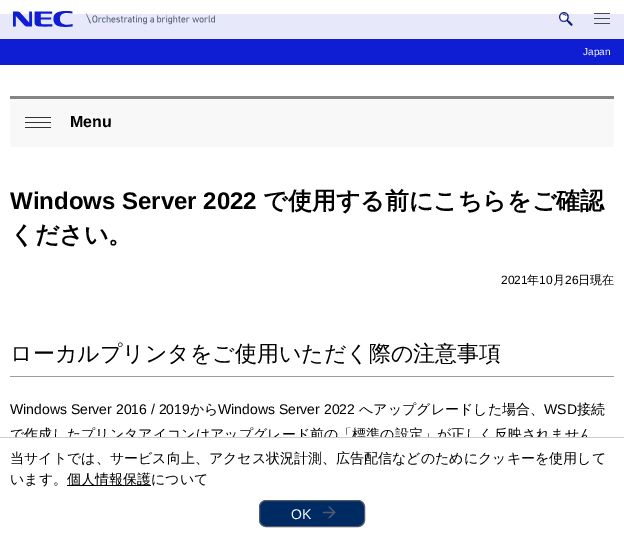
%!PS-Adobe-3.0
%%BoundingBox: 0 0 624 537
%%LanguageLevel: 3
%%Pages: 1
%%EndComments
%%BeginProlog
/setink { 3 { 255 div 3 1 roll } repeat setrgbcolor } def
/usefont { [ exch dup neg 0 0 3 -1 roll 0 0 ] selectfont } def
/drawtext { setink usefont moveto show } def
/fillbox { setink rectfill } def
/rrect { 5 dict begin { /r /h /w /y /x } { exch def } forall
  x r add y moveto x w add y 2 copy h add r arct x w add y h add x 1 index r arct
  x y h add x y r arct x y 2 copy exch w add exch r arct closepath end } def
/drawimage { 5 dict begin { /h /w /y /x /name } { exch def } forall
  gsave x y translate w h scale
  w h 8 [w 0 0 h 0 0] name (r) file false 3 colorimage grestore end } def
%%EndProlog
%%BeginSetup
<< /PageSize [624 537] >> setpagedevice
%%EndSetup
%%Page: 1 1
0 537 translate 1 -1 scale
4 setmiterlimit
0 0 624 537 255 255 255 fillbox
0 14 624 25 231 233 251 fillbox
(assets/img1.rgb) 13 11 202 16 drawimage
560 24 moveto 570.5 13.5 lineto 571 14 lineto 560.5 24.5 lineto closepath fill
(assets/img2.rgb) 559 12 14 14 drawimage
594 13 16 1 74 74 74 fillbox
594 18 16 1 74 74 74 fillbox
594 23 16 1 74 74 74 fillbox
0 39 624 26 15 30 210 fillbox
(Japan) 583 55 /LiberationSans-Regular 10 255 255 255 drawtext
10 99 604 48 248 248 248 fillbox
10 96 604 3 133 133 133 fillbox
25 117 26 1 51 51 51 fillbox
25 122 26 1 51 51 51 fillbox
25 127 26 1 51 51 51 fillbox
(Menu) 70 127 /LiberationSans-Bold 16 0 0 0 drawtext
(Windows Server 2022) 10 209 /LiberationSans-Bold 24 0 0 0 drawtext
(で使用する前にこちらをご確認) 263 209 /WenQuanYiZenHei-Bold 24 0 0 0 drawtext
(ください。) 10 243 /WenQuanYiZenHei-Bold 24 0 0 0 drawtext
(2021) 501 284 /LiberationSans-Regular 12 0 0 0 drawtext
(年) 527 284 /WenQuanYiZenHei-Medium 12 0 0 0 drawtext
(10) 539 284 /LiberationSans-Regular 12 0 0 0 drawtext
(月) 553 284 /WenQuanYiZenHei-Medium 12 0 0 0 drawtext
(26) 565 284 /LiberationSans-Regular 12 0 0 0 drawtext
(日現在) 578 284 /WenQuanYiZenHei-Medium 12 0 0 0 drawtext
10 376 604 1 157 157 157 fillbox
(ローカルプリンタをご使用いただく際の注意事項) 10 361 /WenQuanYiZenHei-Medium 22 0 0 0 drawtext
(Windows Server 2016 / 2019) 10 414 /LiberationSans-Regular 14 0 0 0 drawtext
(から) 190 414 /WenQuanYiZenHei-Medium 14 0 0 0 drawtext
(Windows Server 2022) 218 414 /LiberationSans-Regular 14 0 0 0 drawtext
(へアップグレードした場合、) 359 414 /WenQuanYiZenHei-Medium 14 0 0 0 drawtext
(WSD) 544 414 /LiberationSans-Regular 14 0 0 0 drawtext
(接続) 577 414 /WenQuanYiZenHei-Medium 14 0 0 0 drawtext
(で作成したプリンタアイコンはアップグレード前の「標準の設定」が正しく反映されません) 10 439 /WenQuanYiZenHei-Medium 14 0 0 0 drawtext
16 438 576 4 255 255 255 fillbox
0 437 624 1 204 204 204 fillbox
(当サイトでは、サービス向上、アクセス状況計測、広告配信などのためにクッキーを使用して) 10 463 /WenQuanYiZenHei-Medium 14 0 0 0 drawtext
(います。) 10 484 /WenQuanYiZenHei-Medium 14 0 0 0 drawtext
67 485 84 1 0 0 0 fillbox
(個人情報保護について) 67 484 /WenQuanYiZenHei-Medium 14 0 0 0 drawtext
0 43 98 setink
259.5 500.5 105 26 6.5 rrect gsave fill grestore
83 90 110 setink
stroke
(OK) 291 519 /LiberationSans-Regular 14 255 255 255 drawtext
(assets/img3.rgb) 322 506 14 13 drawimage
showpage
%%EOF
